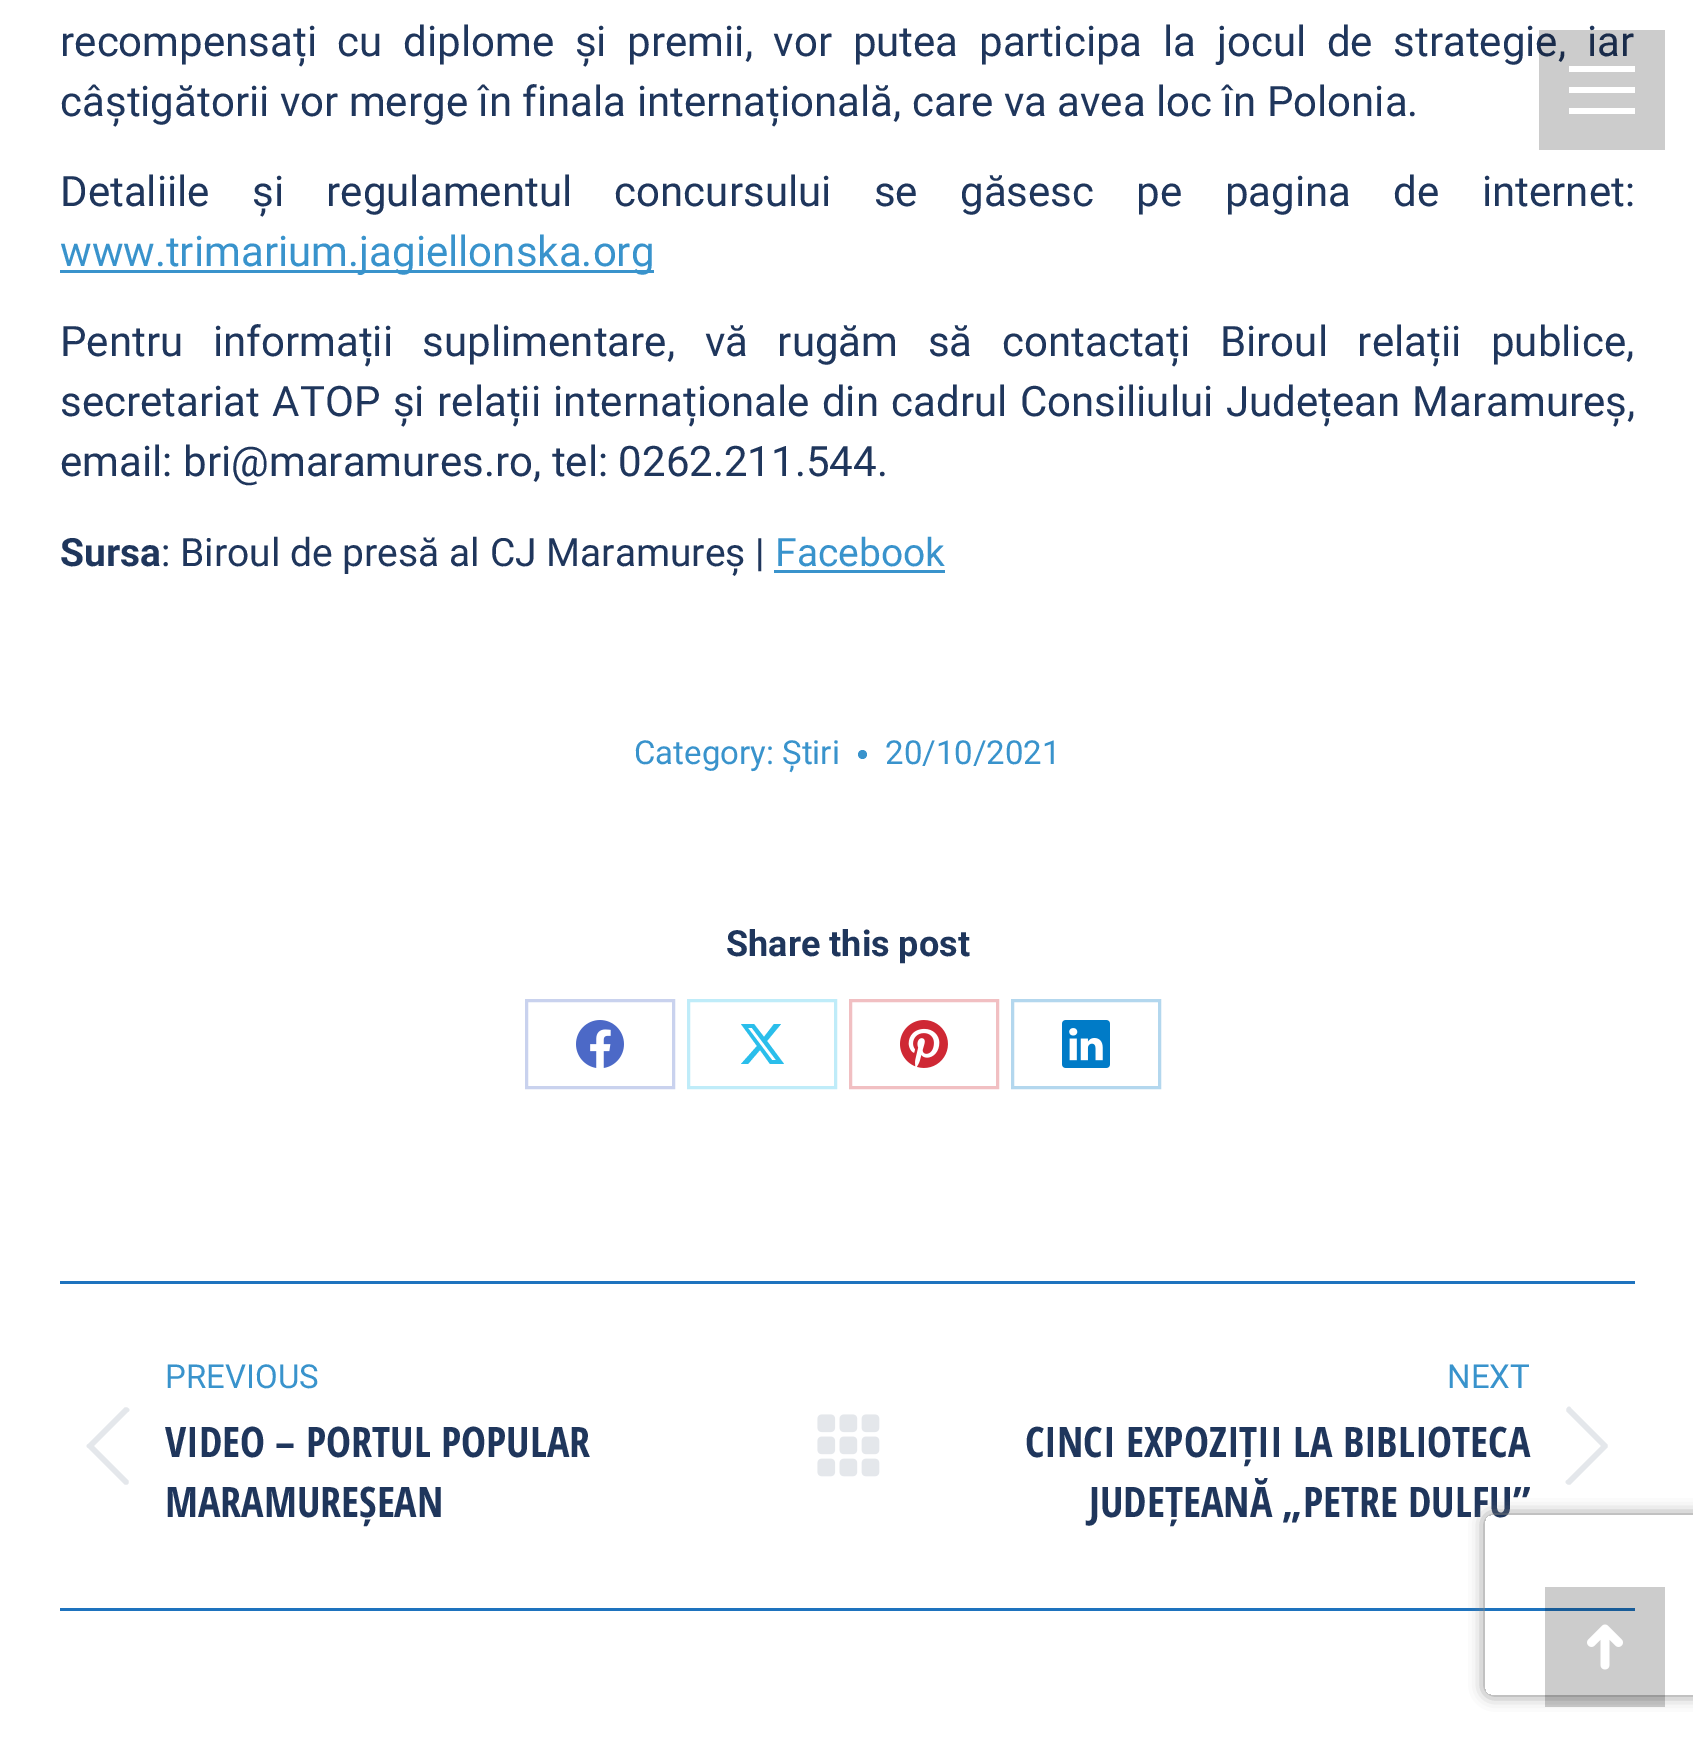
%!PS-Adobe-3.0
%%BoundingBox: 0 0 1693 1737
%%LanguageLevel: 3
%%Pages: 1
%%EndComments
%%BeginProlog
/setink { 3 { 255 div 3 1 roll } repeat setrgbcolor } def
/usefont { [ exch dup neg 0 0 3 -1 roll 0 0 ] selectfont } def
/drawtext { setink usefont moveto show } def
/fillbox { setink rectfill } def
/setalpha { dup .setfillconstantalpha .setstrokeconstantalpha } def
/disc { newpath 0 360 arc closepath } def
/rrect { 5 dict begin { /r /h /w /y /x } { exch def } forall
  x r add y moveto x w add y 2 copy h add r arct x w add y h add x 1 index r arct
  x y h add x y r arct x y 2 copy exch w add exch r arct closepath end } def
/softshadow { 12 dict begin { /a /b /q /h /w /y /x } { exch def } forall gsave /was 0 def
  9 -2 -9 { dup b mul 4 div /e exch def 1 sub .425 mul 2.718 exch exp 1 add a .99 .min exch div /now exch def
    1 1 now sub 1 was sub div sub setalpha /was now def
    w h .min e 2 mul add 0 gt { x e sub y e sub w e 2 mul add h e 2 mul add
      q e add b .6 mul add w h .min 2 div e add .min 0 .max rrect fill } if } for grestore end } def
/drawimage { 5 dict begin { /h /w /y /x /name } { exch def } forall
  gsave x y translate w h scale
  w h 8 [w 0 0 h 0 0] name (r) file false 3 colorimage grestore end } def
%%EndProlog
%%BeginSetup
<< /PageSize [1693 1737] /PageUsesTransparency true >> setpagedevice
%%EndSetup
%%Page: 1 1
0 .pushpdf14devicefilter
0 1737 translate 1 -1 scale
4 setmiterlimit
0 0 1693 1737 255 255 255 fillbox
/Roboto-Regular 42 usefont
31 54 92 setink
60 56 moveto 10.25 0 32 (recompensați cu diplome și premii, vor putea participa la jocul de strategie, iar) widthshow
(câștigătorii vor merge în finala internațională, care va avea loc în Polonia.) 60 116 /Roboto-Regular 42 31 54 92 drawtext
60 206 moveto 32 0 32 (Detaliile și regulamentul concursului se găsesc pe pagina de internet:) widthshow
60 270 594 3 57 147 204 fillbox
(www.trimarium.jagiellonska.org) 60 266 /Roboto-Regular 42 57 147 204 drawtext
31 54 92 setink
60 356 moveto 19.25 0 32 (Pentru informații suplimentare, vă rugăm să contactați Biroul relații publice,) widthshow
60 416 moveto 2 0 32 (secretariat ATOP și relații internaționale din cadrul Consiliului Județean Maramureș,) widthshow
(email: bri@maramures.ro, tel: 0262.211.544.) 60 476 /Roboto-Regular 42 31 54 92 drawtext
(Sursa) 60 566 /Roboto-Bold 39 31 54 92 drawtext
(: Biroul de presă al CJ Maramureș |) 161 566 /Roboto-Regular 39 31 54 92 drawtext
(Facebook) 775 566 /Roboto-Regular 39 57 147 204 drawtext
774 570 171 3 57 147 204 fillbox
(Category: Știri) 634 764 /Roboto-Regular 33 57 147 204 drawtext
862.5 754.5 4.5 disc fill
(20/10/2021) 885 764 /Roboto-Regular 33 57 147 204 drawtext
(Share this post) 726 956 /Roboto-Bold 36 31 54 92 drawtext
201 210 238 setink
3 setlinewidth
526.5 1000.5 147 87 rectstroke
(assets/img1.rgb) 576 1020 48 48 drawimage
191 236 249 setink
688.5 1000.5 147 87 rectstroke
42 190 235 setink
774 1024 moveto 781 1024 lineto 767 1041 lineto 784 1064 lineto 770 1064 lineto 760 1050 lineto 748 1064 lineto 741 1064 lineto 757 1046 lineto 741 1024 lineto 754 1024 lineto 764 1037 lineto closepath 772 1060 moveto 776 1060 lineto 752 1028 lineto 748 1028 lineto closepath fill
241 191 194 setink
850.5 1000.5 147 87 rectstroke
(assets/img2.rgb) 900 1020 48 48 drawimage
179 215 238 setink
1012.5 1000.5 147 87 rectstroke
(assets/img3.rgb) 1062 1020 48 48 drawimage
60 1281 1575 3 30 115 190 fillbox
60 1608 1575 3 30 115 190 fillbox
(PREVIOUS) 165 1388 /Roboto-Regular 33 57 147 204 drawtext
228 231 235 setink
128 1408 moveto 130 1409 130 1411 128 1412 curveto 94 1446 lineto 128 1480 lineto 129 1481 129 1483 128 1484 curveto 127 1485 125 1485 124 1484 curveto 88 1448 lineto 86 1447 86 1445 88 1444 curveto 124 1408 lineto 125 1407 127 1407 128 1408 curveto closepath fill
(VIDEO – PORTUL POPULAR) 165 1457 /OpenSansCondensed-Bold 42 31 54 92 drawtext
(MARAMUREȘEAN) 165 1517 /OpenSansCondensed-Bold 42 31 54 92 drawtext
(assets/img4.rgb) 817 1414 63 63 drawimage
(NEXT) 1447 1388 /Roboto-Regular 33 57 147 204 drawtext
(CINCI EXPOZIȚII LA BIBLIOTECA) 1025 1457 /OpenSansCondensed-Bold 42 31 54 92 drawtext
(JUDEȚEANĂ „PETRE DULFU”) 1089 1517 /OpenSansCondensed-Bold 42 31 54 92 drawtext
228 231 235 setink
1567 1408 moveto 1568 1406 1570 1406 1571 1408 curveto 1607 1444 lineto 1608 1445 1608 1447 1607 1448 curveto 1571 1484 lineto 1570 1485 1568 1485 1567 1484 curveto 1565 1483 1565 1481 1567 1480 curveto 1601 1446 lineto 1567 1412 lineto 1566 1411 1566 1409 1567 1408 curveto closepath fill
0.2 setalpha
1539 30 126 120 0 0 0 fillbox
1 setalpha
1569 66 66 6 255 255 255 fillbox
1569 87 66 6 255 255 255 fillbox
1569 108 66 6 255 255 255 fillbox
gsave
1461 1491 moveto 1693 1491 lineto 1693 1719 lineto 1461 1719 lineto closepath 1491 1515 moveto 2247 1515 lineto 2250.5 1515 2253 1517.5 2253 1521 curveto 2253 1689 lineto 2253 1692.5 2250.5 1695 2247 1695 curveto 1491 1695 lineto 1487.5 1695 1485 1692.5 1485 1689 curveto 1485 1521 lineto 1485 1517.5 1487.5 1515 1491 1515 curveto closepath eoclip newpath
128 128 128 setink
1485 1515 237 180 6 7.5 1 softshadow
grestore
0.2 setalpha
1545 1587 120 120 0 0 0 fillbox
1 setalpha
(assets/img5.rgb) 1587 1624 36 46 drawimage
.poppdf14devicefilter showpage
%%EOF
